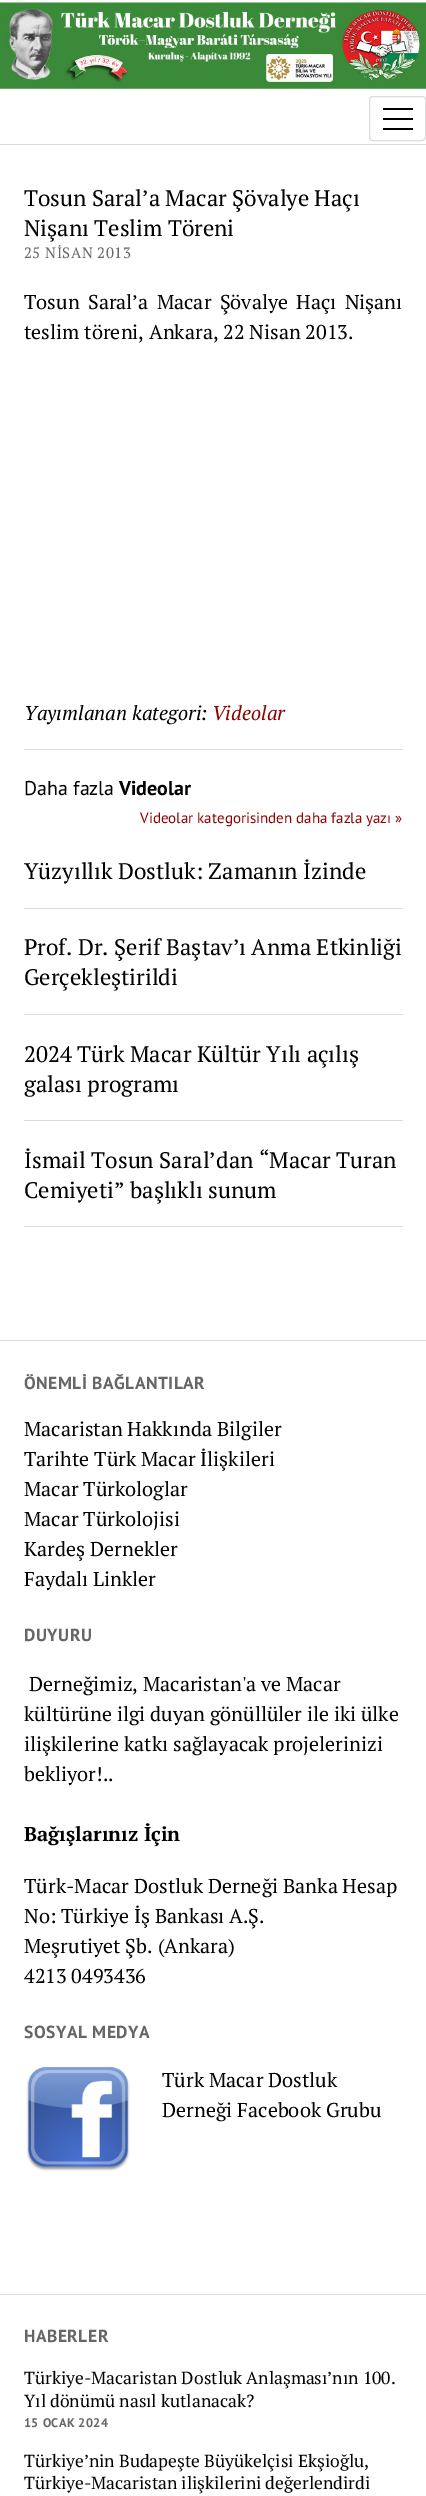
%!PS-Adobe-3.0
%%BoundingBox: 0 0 426 2496
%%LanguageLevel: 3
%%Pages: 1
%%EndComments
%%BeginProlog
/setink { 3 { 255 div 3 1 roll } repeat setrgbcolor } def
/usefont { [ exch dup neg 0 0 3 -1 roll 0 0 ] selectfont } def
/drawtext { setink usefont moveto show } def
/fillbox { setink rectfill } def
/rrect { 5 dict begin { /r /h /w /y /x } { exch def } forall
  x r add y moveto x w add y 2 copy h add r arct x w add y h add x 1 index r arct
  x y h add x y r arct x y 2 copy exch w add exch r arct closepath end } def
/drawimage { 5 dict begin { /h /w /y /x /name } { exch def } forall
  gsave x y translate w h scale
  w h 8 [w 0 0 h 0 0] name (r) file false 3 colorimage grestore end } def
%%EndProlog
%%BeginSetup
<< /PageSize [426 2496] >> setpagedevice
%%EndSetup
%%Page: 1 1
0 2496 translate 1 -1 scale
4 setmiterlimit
0 0 426 2496 255 255 255 fillbox
0 144 426 1 220 220 220 fillbox
(assets/img1.rgb) 0 2 426 87 drawimage
369.5 96.5 56 44 3.5 rrect stroke
383 108 30 2 0 0 0 fillbox
383 118 30 2 0 0 0 fillbox
383 128 30 2 0 0 0 fillbox
(Tosun Saral’a Macar Şövalye Haçı) 24 206 /PTSerif-Regular 22.5 0 0 0 drawtext
(Nişanı Teslim Töreni) 24 236 /PTSerif-Regular 22.5 0 0 0 drawtext
/PTSerif-Regular 15 usefont
102 102 102 setink
24 258 moveto 0.5 0 (25 NİSAN 2013) ashow
/PTSerif-Regular 20 usefont
0 0 0 setink
24 309 moveto 3.5 0 32 (Tosun Saral’a Macar Şövalye Haçı Nişanı) widthshow
(teslim töreni, Ankara, 22 Nisan 2013.) 24 339 /PTSerif-Regular 20 0 0 0 drawtext
24 749 379 1 220 220 220 fillbox
(Yayımlanan kategori:) 24 720 /PTSerif-Italic 20 0 0 0 drawtext
(Videolar) 212 720 /PTSerif-Italic 20 140 2 2 drawtext
(Daha fazla) 24 795 /PTSans-Regular 20 0 0 0 drawtext
(Videolar) 119 795 /PTSans-Bold 20 0 0 0 drawtext
(Videolar kategorisinden daha fazla yazı ») 140 823 /PTSans-Regular 15 140 2 2 drawtext
24 908 379 1 220 220 220 fillbox
(Yüzyıllık Dostluk: Zamanın İzinde) 24 879 /PTSerif-Regular 22.5 0 0 0 drawtext
24 1014 379 1 220 220 220 fillbox
(Prof. Dr. Şerif Baştav’ı Anma Etkinliği) 24 955 /PTSerif-Regular 22.5 0 0 0 drawtext
(Gerçekleştirildi) 24 985 /PTSerif-Regular 22.5 0 0 0 drawtext
24 1120 379 1 220 220 220 fillbox
(2024 Türk Macar Kültür Yılı açılış) 24 1062 /PTSerif-Regular 22.5 0 0 0 drawtext
(galası programı) 24 1092 /PTSerif-Regular 22.5 0 0 0 drawtext
24 1226 379 1 220 220 220 fillbox
(İsmail Tosun Saral’dan “Macar Turan) 24 1168 /PTSerif-Regular 22.5 0 0 0 drawtext
(Cemiyeti” başlıklı sunum) 24 1198 /PTSerif-Regular 22.5 0 0 0 drawtext
0 1340 426 1 220 220 220 fillbox
/PTSans-Bold 17.5 usefont
102 102 102 setink
24 1389 moveto 0.5 0 (ÖNEMLİ BAĞLANTILAR) ashow
(Macaristan Hakkında Bilgiler) 24 1436 /PTSerif-Regular 20 0 0 0 drawtext
(Tarihte Türk Macar İlişkileri) 24 1466 /PTSerif-Regular 20 0 0 0 drawtext
(Macar Türkologlar) 24 1496 /PTSerif-Regular 20 0 0 0 drawtext
(Macar Türkolojisi) 24 1526 /PTSerif-Regular 20 0 0 0 drawtext
(Kardeş Dernekler) 24 1556 /PTSerif-Regular 20 0 0 0 drawtext
(Faydalı Linkler) 24 1586 /PTSerif-Regular 20 0 0 0 drawtext
/PTSans-Bold 17.5 usefont
102 102 102 setink
24 1641 moveto 0.5 0 (DUYURU) ashow
(Derneğimiz, Macaristan'a ve Macar) 29 1691 /PTSerif-Regular 20 0 0 0 drawtext
(kültürüne ilgi duyan gönüllüler ile iki ülke) 24 1721 /PTSerif-Regular 20 0 0 0 drawtext
(ilişkilerine katkı sağlayacak projelerinizi) 24 1751 /PTSerif-Regular 20 0 0 0 drawtext
(bekliyor!..) 24 1781 /PTSerif-Regular 20 0 0 0 drawtext
(Bağışlarınız İçin) 24 1841 /PTSerif-Bold 20 0 0 0 drawtext
(Türk-Macar Dostluk Derneği Banka Hesap) 24 1893 /PTSerif-Regular 20 0 0 0 drawtext
(No: Türkiye İş Bankası A.Ş.) 24 1923 /PTSerif-Regular 20 0 0 0 drawtext
(Meşrutiyet Şb. \(Ankara\)) 24 1953 /PTSerif-Regular 20 0 0 0 drawtext
(4213 0493436) 24 1983 /PTSerif-Regular 20 0 0 0 drawtext
/PTSans-Bold 17.5 usefont
102 102 102 setink
24 2038 moveto 0.5 0 (SOSYAL MEDYA) ashow
(assets/img2.rgb) 26 2066 104 105 drawimage
(Türk Macar Dostluk) 162 2087 /PTSerif-Regular 20 0 0 0 drawtext
(Derneği Facebook Grubu) 162 2117 /PTSerif-Regular 20 0 0 0 drawtext
0 2294 426 1 220 220 220 fillbox
/PTSans-Bold 17.5 usefont
102 102 102 setink
24 2342 moveto 0.5 0 (HABERLER) ashow
(Türkiye-Macaristan Dostluk Anlaşması’nın 100.) 24 2384 /PTSerif-Regular 17.5 0 0 0 drawtext
(Yıl dönümü nasıl kutlanacak?) 24 2407 /PTSerif-Regular 17.5 0 0 0 drawtext
/PTSans-Bold 12.5 usefont
102 102 102 setink
24 2427 moveto 0.4 0 (15 OCAK 2024) ashow
(Türkiye’nin Budapeşte Büyükelçisi Ekşioğlu,) 24 2467 /PTSerif-Regular 17.5 0 0 0 drawtext
(Türkiye-Macaristan ilişkilerini değerlendirdi) 24 2489 /PTSerif-Regular 17.5 0 0 0 drawtext
showpage
%%EOF
